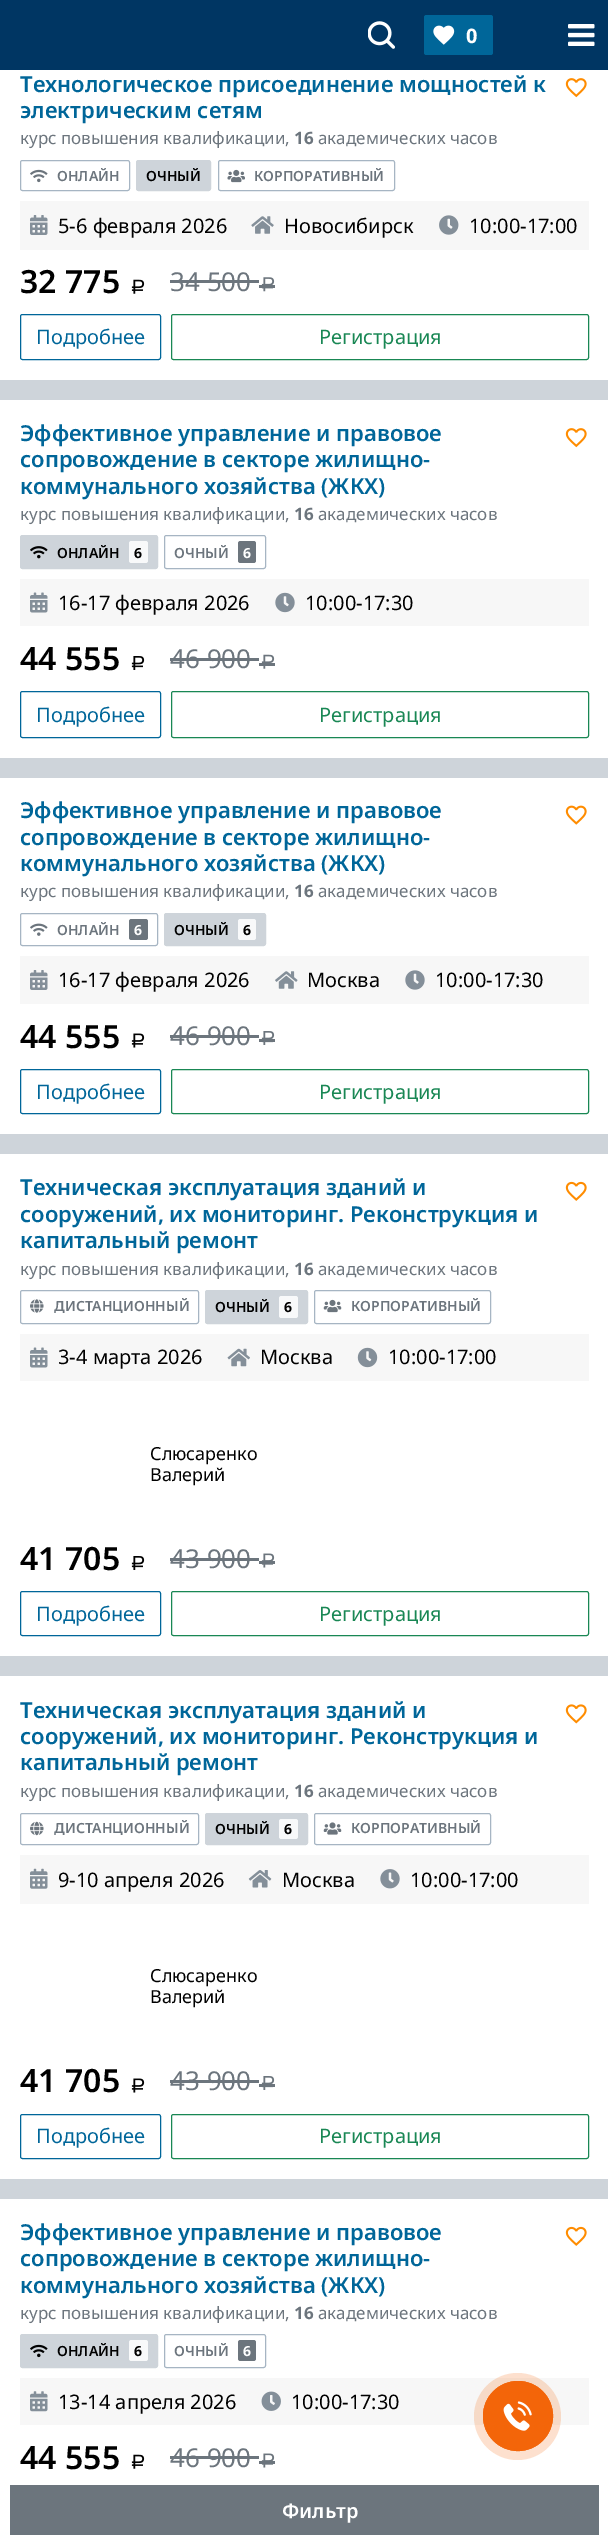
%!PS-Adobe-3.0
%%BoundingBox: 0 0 608 2544
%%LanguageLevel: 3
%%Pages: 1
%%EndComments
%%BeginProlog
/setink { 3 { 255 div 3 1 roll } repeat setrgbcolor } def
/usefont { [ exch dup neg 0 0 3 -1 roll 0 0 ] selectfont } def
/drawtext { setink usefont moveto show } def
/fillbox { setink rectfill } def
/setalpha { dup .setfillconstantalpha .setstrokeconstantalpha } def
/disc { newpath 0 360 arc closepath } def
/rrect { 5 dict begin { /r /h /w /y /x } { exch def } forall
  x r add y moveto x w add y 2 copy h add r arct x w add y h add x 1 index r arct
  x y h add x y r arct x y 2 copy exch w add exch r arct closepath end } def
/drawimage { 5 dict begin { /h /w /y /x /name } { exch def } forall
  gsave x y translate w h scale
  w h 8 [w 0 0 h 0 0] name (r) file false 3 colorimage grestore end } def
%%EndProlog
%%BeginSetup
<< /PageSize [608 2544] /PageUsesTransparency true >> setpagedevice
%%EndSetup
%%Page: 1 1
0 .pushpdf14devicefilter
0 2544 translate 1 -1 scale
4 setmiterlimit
0 0 608 2544 206 212 218 fillbox
0 0 608 70 0 54 99 fillbox
(assets/img1.rgb) 368 21 27 28 drawimage
0 102 153 setink
424 15 69 40 2.5 rrect fill
(assets/img2.rgb) 433 25 22 20 drawimage
(0) 466 43 /NotoSans-Bold 20 255 255 255 drawtext
(assets/img3.rgb) 568 24 27 22 drawimage
0 70 608 310 255 255 255 fillbox
(Технологическое присоединение мощностей к) 20 92 /NotoSans-SemiBold 22 0 102 153 drawtext
(электрическим сетям) 20 118 /NotoSans-SemiBold 22 0 102 153 drawtext
(курс повышения квалификации,) 20 144 /NotoSans-Regular 17 108 117 125 drawtext
(16) 294 144 /NotoSans-Bold 17 108 117 125 drawtext
(академических часов) 318 144 /NotoSans-Regular 17 108 117 125 drawtext
(assets/img4.rgb) 565 78 22 20 drawimage
166 181 195 setink
20.5 160.5 109 30 2 rrect stroke
(assets/img5.rgb) 30 169 18 14 drawimage
(ОНЛАЙН) 57 181 /NotoSans-SemiBold 14 108 117 125 drawtext
206 212 218 setink
136.5 160.5 74 30 2 rrect gsave fill grestore
stroke
(ОЧНЫЙ) 146 181 /NotoSans-SemiBold 14 0 0 0 drawtext
166 181 195 setink
218.5 160.5 176 30 2 rrect stroke
(assets/img6.rgb) 227 169 18 14 drawimage
(КОРПОРАТИВНЫЙ) 254 181 /NotoSans-SemiBold 14 108 117 125 drawtext
20 201 569 49 247 247 247 fillbox
(assets/img7.rgb) 30 215 18 20 drawimage
(5-6 февраля 2026) 58 233 /NotoSans-Regular 20 0 0 0 drawtext
(assets/img8.rgb) 251 216 23 18 drawimage
(Новосибирск) 284 233 /NotoSans-Regular 20 0 0 0 drawtext
(assets/img9.rgb) 439 215 20 20 drawimage
(10:00-17:00) 469 233 /NotoSans-Regular 20 0 0 0 drawtext
(32 775) 20 293 /NotoSans-SemiBold 32 0 0 0 drawtext
(assets/img10.rgb) 131 279 14 15 drawimage
(34 500) 170 291 /NotoSans-Regular 26 108 117 125 drawtext
170 280 89 3 108 117 125 fillbox
(assets/img11.rgb) 261 277 14 15 drawimage
259 285 16 3 108 117 125 fillbox
0 102 153 setink
20.5 314.5 140 45 2 rrect stroke
(Подробнее) 36 344 /NotoSans-Regular 20 0 102 153 drawtext
25 135 84 setink
171.5 314.5 417 45 2 rrect stroke
(Регистрация) 319 344 /NotoSans-Regular 20 25 135 84 drawtext
0 400 608 358 255 255 255 fillbox
(Эффективное управление и правовое) 20 441 /NotoSans-SemiBold 22 0 102 153 drawtext
(сопровождение в секторе жилищно-) 20 467 /NotoSans-SemiBold 22 0 102 153 drawtext
(коммунального хозяйства \(ЖКХ\)) 20 494 /NotoSans-SemiBold 22 0 102 153 drawtext
(курс повышения квалификации,) 20 520 /NotoSans-Regular 17 108 117 125 drawtext
(16) 294 520 /NotoSans-Bold 17 108 117 125 drawtext
(академических часов) 318 520 /NotoSans-Regular 17 108 117 125 drawtext
(assets/img4.rgb) 565 428 22 20 drawimage
206 212 218 setink
20.5 535.5 137 33 2 rrect gsave fill grestore
stroke
(assets/img12.rgb) 30 546 18 13 drawimage
(ОНЛАЙН) 57 558 /NotoSans-SemiBold 14 0 0 0 drawtext
248 249 250 setink
129 541 19 22 2.5 rrect fill
(6) 134 558 /NotoSans-Bold 14 0 0 0 drawtext
166 181 195 setink
164.5 535.5 101 33 2 rrect stroke
(ОЧНЫЙ) 174 558 /NotoSans-SemiBold 14 108 117 125 drawtext
238 541 18 22 2.5 rrect fill
(6) 243 558 /NotoSans-Bold 14 255 255 255 drawtext
20 579 569 47 247 247 247 fillbox
(assets/img13.rgb) 30 592 18 21 drawimage
(16-17 февраля 2026) 58 610 /NotoSans-Regular 20 0 0 0 drawtext
(assets/img14.rgb) 275 592 20 21 drawimage
(10:00-17:30) 305 610 /NotoSans-Regular 20 0 0 0 drawtext
(44 555) 20 670 /NotoSans-SemiBold 32 0 0 0 drawtext
(assets/img15.rgb) 131 656 14 14 drawimage
(46 900) 170 668 /NotoSans-Regular 26 108 117 125 drawtext
170 658 89 3 108 117 125 fillbox
(assets/img16.rgb) 261 654 14 15 drawimage
259 663 16 3 108 117 125 fillbox
0 102 153 setink
20.5 691.5 140 46 2 rrect stroke
(Подробнее) 36 722 /NotoSans-Regular 20 0 102 153 drawtext
25 135 84 setink
171.5 691.5 417 46 2 rrect stroke
(Регистрация) 319 722 /NotoSans-Regular 20 25 135 84 drawtext
0 778 608 356 255 255 255 fillbox
(Эффективное управление и правовое) 20 818 /NotoSans-SemiBold 22 0 102 153 drawtext
(сопровождение в секторе жилищно-) 20 845 /NotoSans-SemiBold 22 0 102 153 drawtext
(коммунального хозяйства \(ЖКХ\)) 20 871 /NotoSans-SemiBold 22 0 102 153 drawtext
(курс повышения квалификации,) 20 897 /NotoSans-Regular 17 108 117 125 drawtext
(16) 294 897 /NotoSans-Bold 17 108 117 125 drawtext
(академических часов) 318 897 /NotoSans-Regular 17 108 117 125 drawtext
(assets/img17.rgb) 565 805 22 20 drawimage
166 181 195 setink
20.5 913.5 137 32 2 rrect stroke
(assets/img18.rgb) 30 923 18 13 drawimage
(ОНЛАЙН) 57 935 /NotoSans-SemiBold 14 108 117 125 drawtext
129 919 19 21 2.5 rrect fill
(6) 134 935 /NotoSans-Bold 14 255 255 255 drawtext
206 212 218 setink
164.5 913.5 101 32 2 rrect gsave fill grestore
stroke
(ОЧНЫЙ) 174 935 /NotoSans-SemiBold 14 0 0 0 drawtext
248 249 250 setink
238 919 18 21 2.5 rrect fill
(6) 243 935 /NotoSans-Bold 14 0 0 0 drawtext
20 956 569 48 247 247 247 fillbox
(assets/img7.rgb) 30 970 18 20 drawimage
(16-17 февраля 2026) 58 987 /NotoSans-Regular 20 0 0 0 drawtext
(assets/img19.rgb) 275 971 23 18 drawimage
(Москва) 307 987 /NotoSans-Regular 20 0 0 0 drawtext
(assets/img20.rgb) 405 970 20 20 drawimage
(10:00-17:30) 435 987 /NotoSans-Regular 20 0 0 0 drawtext
(44 555) 20 1048 /NotoSans-SemiBold 32 0 0 0 drawtext
(assets/img21.rgb) 131 1033 14 15 drawimage
(46 900) 170 1045 /NotoSans-Regular 26 108 117 125 drawtext
170 1035 89 3 108 117 125 fillbox
(assets/img22.rgb) 261 1031 14 14 drawimage
259 1039 16 3 108 117 125 fillbox
0 102 153 setink
20.5 1069.5 140 44 2 rrect stroke
(Подробнее) 36 1099 /NotoSans-Regular 20 0 102 153 drawtext
25 135 84 setink
171.5 1069.5 417 44 2 rrect stroke
(Регистрация) 319 1099 /NotoSans-Regular 20 25 135 84 drawtext
0 1154 608 502 255 255 255 fillbox
(Техническая эксплуатация зданий и) 20 1195 /NotoSans-SemiBold 22 0 102 153 drawtext
(сооружений, их мониторинг. Реконструкция и) 20 1222 /NotoSans-SemiBold 22 0 102 153 drawtext
(капитальный ремонт) 20 1248 /NotoSans-SemiBold 22 0 102 153 drawtext
(курс повышения квалификации,) 20 1275 /NotoSans-Regular 17 108 117 125 drawtext
(16) 294 1275 /NotoSans-Bold 17 108 117 125 drawtext
(академических часов) 318 1275 /NotoSans-Regular 17 108 117 125 drawtext
(assets/img23.rgb) 565 1181 22 20 drawimage
166 181 195 setink
20.5 1290.5 178 33 2 rrect stroke
(assets/img24.rgb) 30 1299 14 14 drawimage
(ДИСТАНЦИОННЫЙ) 54 1311 /NotoSans-SemiBold 14 108 117 125 drawtext
206 212 218 setink
205.5 1290.5 102 33 2 rrect gsave fill grestore
stroke
(ОЧНЫЙ) 215 1312 /NotoSans-SemiBold 14 0 0 0 drawtext
248 249 250 setink
279 1296 19 22 2.5 rrect fill
(6) 284 1312 /NotoSans-Bold 14 0 0 0 drawtext
166 181 195 setink
314.5 1290.5 176 33 2 rrect stroke
(assets/img25.rgb) 323 1299 19 14 drawimage
(КОРПОРАТИВНЫЙ) 351 1311 /NotoSans-SemiBold 14 108 117 125 drawtext
20 1334 569 47 247 247 247 fillbox
(assets/img13.rgb) 30 1347 18 21 drawimage
(3-4 марта 2026) 58 1364 /NotoSans-Regular 20 0 0 0 drawtext
(assets/img26.rgb) 227 1348 23 19 drawimage
(Москва) 260 1364 /NotoSans-Regular 20 0 0 0 drawtext
(assets/img27.rgb) 357 1347 21 21 drawimage
(10:00-17:00) 388 1364 /NotoSans-Regular 20 0 0 0 drawtext
(Слюсаренко) 150 1460 /NotoSans-Regular 18 0 0 0 drawtext
(Валерий) 150 1481 /NotoSans-Regular 18 0 0 0 drawtext
(41 705) 20 1570 /NotoSans-SemiBold 32 0 0 0 drawtext
(assets/img15.rgb) 131 1556 14 14 drawimage
(43 900) 170 1568 /NotoSans-Regular 26 108 117 125 drawtext
170 1558 89 3 108 117 125 fillbox
(assets/img28.rgb) 261 1553 14 15 drawimage
259 1561 16 3 108 117 125 fillbox
0 102 153 setink
20.5 1591.5 140 44 2 rrect stroke
(Подробнее) 36 1621 /NotoSans-Regular 20 0 102 153 drawtext
25 135 84 setink
171.5 1591.5 417 44 2 rrect stroke
(Регистрация) 319 1621 /NotoSans-Regular 20 25 135 84 drawtext
0 1676 608 503 255 255 255 fillbox
(Техническая эксплуатация зданий и) 20 1718 /NotoSans-SemiBold 22 0 102 153 drawtext
(сооружений, их мониторинг. Реконструкция и) 20 1744 /NotoSans-SemiBold 22 0 102 153 drawtext
(капитальный ремонт) 20 1770 /NotoSans-SemiBold 22 0 102 153 drawtext
(курс повышения квалификации,) 20 1797 /NotoSans-Regular 17 108 117 125 drawtext
(16) 294 1797 /NotoSans-Bold 17 108 117 125 drawtext
(академических часов) 318 1797 /NotoSans-Regular 17 108 117 125 drawtext
(assets/img29.rgb) 565 1704 22 20 drawimage
166 181 195 setink
20.5 1813.5 178 31 2 rrect stroke
(assets/img30.rgb) 30 1821 14 15 drawimage
(ДИСТАНЦИОННЫЙ) 54 1833 /NotoSans-SemiBold 14 108 117 125 drawtext
206 212 218 setink
205.5 1813.5 102 31 2 rrect gsave fill grestore
stroke
(ОЧНЫЙ) 215 1834 /NotoSans-SemiBold 14 0 0 0 drawtext
248 249 250 setink
279 1819 19 20 2.5 rrect fill
(6) 284 1834 /NotoSans-Bold 14 0 0 0 drawtext
166 181 195 setink
314.5 1813.5 176 31 2 rrect stroke
(assets/img31.rgb) 323 1822 19 13 drawimage
(КОРПОРАТИВНЫЙ) 351 1833 /NotoSans-SemiBold 14 108 117 125 drawtext
20 1855 569 49 247 247 247 fillbox
(assets/img32.rgb) 30 1868 18 21 drawimage
(9-10 апреля 2026) 58 1887 /NotoSans-Regular 20 0 0 0 drawtext
(assets/img33.rgb) 248 1870 24 18 drawimage
(Москва) 282 1887 /NotoSans-Regular 20 0 0 0 drawtext
(assets/img34.rgb) 380 1869 20 20 drawimage
(10:00-17:00) 410 1887 /NotoSans-Regular 20 0 0 0 drawtext
(Слюсаренко) 150 1982 /NotoSans-Regular 18 0 0 0 drawtext
(Валерий) 150 2003 /NotoSans-Regular 18 0 0 0 drawtext
(41 705) 20 2092 /NotoSans-SemiBold 32 0 0 0 drawtext
(assets/img21.rgb) 131 2078 14 15 drawimage
(43 900) 170 2090 /NotoSans-Regular 26 108 117 125 drawtext
170 2080 89 3 108 117 125 fillbox
(assets/img22.rgb) 261 2076 14 14 drawimage
259 2084 16 3 108 117 125 fillbox
0 102 153 setink
20.5 2114.5 140 44 2 rrect stroke
(Подробнее) 36 2143 /NotoSans-Regular 20 0 102 153 drawtext
25 135 84 setink
171.5 2114.5 417 44 2 rrect stroke
(Регистрация) 319 2143 /NotoSans-Regular 20 25 135 84 drawtext
0 2199 608 345 255 255 255 fillbox
(Эффективное управление и правовое) 20 2240 /NotoSans-SemiBold 22 0 102 153 drawtext
(сопровождение в секторе жилищно-) 20 2266 /NotoSans-SemiBold 22 0 102 153 drawtext
(коммунального хозяйства \(ЖКХ\)) 20 2293 /NotoSans-SemiBold 22 0 102 153 drawtext
(курс повышения квалификации,) 20 2319 /NotoSans-Regular 17 108 117 125 drawtext
(16) 294 2319 /NotoSans-Bold 17 108 117 125 drawtext
(академических часов) 318 2319 /NotoSans-Regular 17 108 117 125 drawtext
(assets/img23.rgb) 565 2226 22 20 drawimage
206 212 218 setink
20.5 2334.5 137 33 2 rrect gsave fill grestore
stroke
(assets/img35.rgb) 30 2344 18 14 drawimage
(ОНЛАЙН) 57 2356 /NotoSans-SemiBold 14 0 0 0 drawtext
248 249 250 setink
129 2340 19 21 2.5 rrect fill
(6) 134 2356 /NotoSans-Bold 14 0 0 0 drawtext
166 181 195 setink
164.5 2334.5 101 33 2 rrect stroke
(ОЧНЫЙ) 174 2356 /NotoSans-SemiBold 14 108 117 125 drawtext
238 2340 18 21 2.5 rrect fill
(6) 243 2356 /NotoSans-Bold 14 255 255 255 drawtext
20 2378 569 47 247 247 247 fillbox
(assets/img36.rgb) 30 2391 18 21 drawimage
(13-14 апреля 2026) 58 2409 /NotoSans-Regular 20 0 0 0 drawtext
(assets/img37.rgb) 261 2391 20 20 drawimage
(10:00-17:30) 291 2409 /NotoSans-Regular 20 0 0 0 drawtext
(44 555) 20 2469 /NotoSans-SemiBold 32 0 0 0 drawtext
(assets/img10.rgb) 131 2454 14 15 drawimage
(46 900) 170 2467 /NotoSans-Regular 26 108 117 125 drawtext
170 2456 89 3 108 117 125 fillbox
(assets/img28.rgb) 261 2453 14 15 drawimage
259 2461 16 3 108 117 125 fillbox
10 2485 589 50 108 117 125 fillbox
(Фильтр) 282 2518 /NotoSans-SemiBold 20 255 255 255 drawtext
0.2 setalpha
243 101 9 setink
517.5 2416.5 43.5 disc fill
1 setalpha
518 2416 34.5 disc stroke
518 2416 35 disc fill
(assets/img38.rgb) 503 2401 29 30 drawimage
.poppdf14devicefilter showpage
%%EOF
